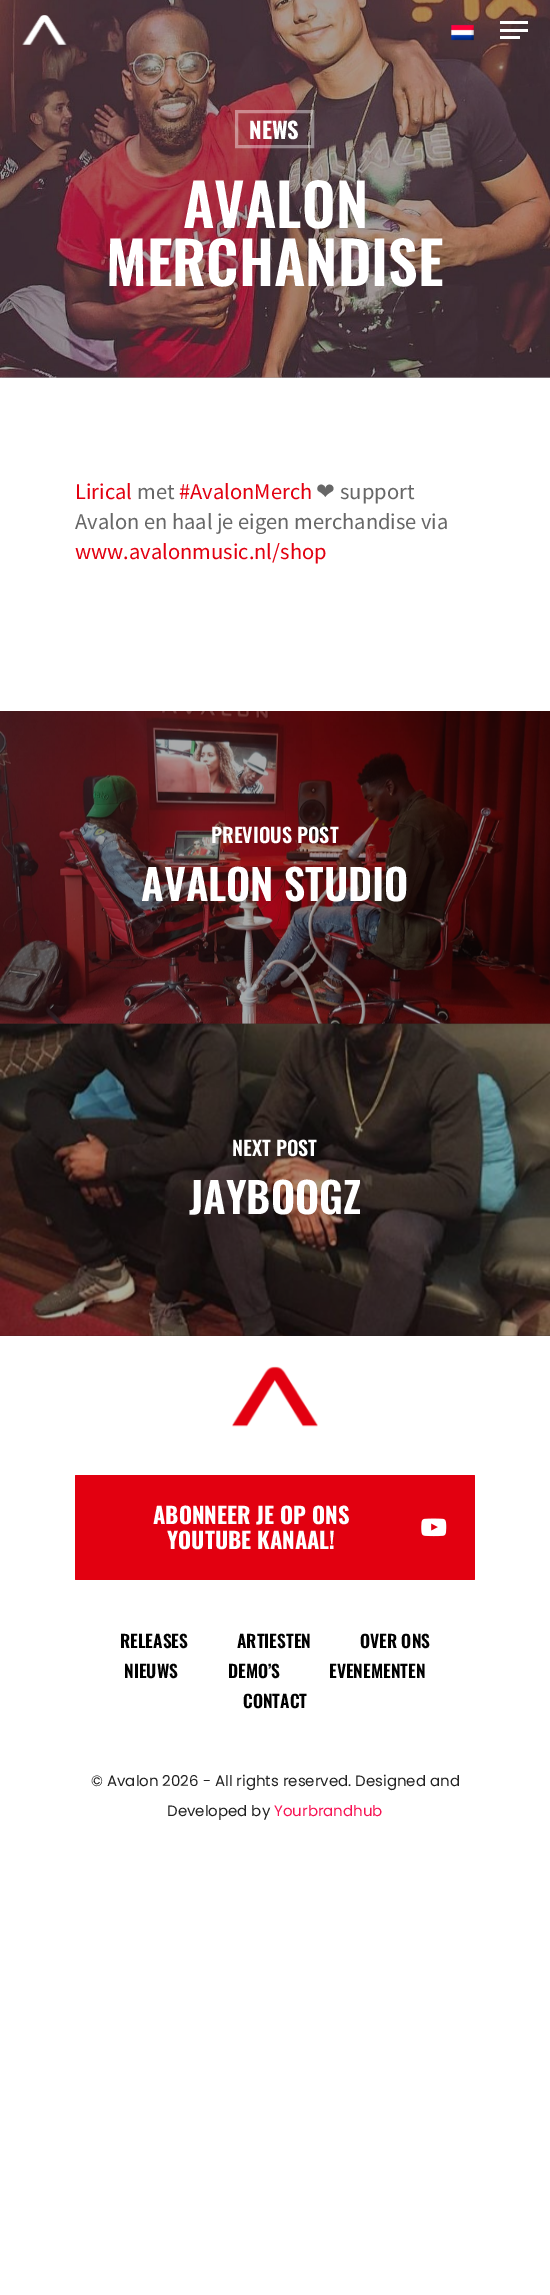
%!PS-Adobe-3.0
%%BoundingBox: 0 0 550 2295
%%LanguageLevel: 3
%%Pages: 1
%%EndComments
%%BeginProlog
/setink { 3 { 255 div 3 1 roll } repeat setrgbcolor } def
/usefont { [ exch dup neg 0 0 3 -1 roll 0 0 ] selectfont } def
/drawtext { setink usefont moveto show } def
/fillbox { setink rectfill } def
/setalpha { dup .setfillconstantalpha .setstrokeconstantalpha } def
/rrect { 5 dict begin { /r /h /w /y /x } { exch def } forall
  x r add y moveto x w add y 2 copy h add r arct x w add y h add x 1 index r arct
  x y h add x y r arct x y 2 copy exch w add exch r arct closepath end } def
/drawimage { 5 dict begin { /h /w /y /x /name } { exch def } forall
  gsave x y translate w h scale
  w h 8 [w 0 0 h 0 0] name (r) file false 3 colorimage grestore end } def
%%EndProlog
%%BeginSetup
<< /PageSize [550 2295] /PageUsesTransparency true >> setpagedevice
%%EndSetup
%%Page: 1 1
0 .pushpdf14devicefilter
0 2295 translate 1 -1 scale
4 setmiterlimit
0 0 550 2295 255 255 255 fillbox
0 377 550 1 165 165 165 fillbox
(assets/img3.rgb) 0 0 550 378 drawimage
(assets/img1.rgb) 22 15 45 30 drawimage
(assets/img2.rgb) 451 24 23 17 drawimage
500 21 28 3 255 255 255 fillbox
500 36 20 3 255 255 255 fillbox
500 29 28 3 255 255 255 fillbox
0.4 setalpha
3 setlinewidth
236.5 111.5 76 35 rectstroke
1 setalpha
(NEWS) 249 139 /Oswald-Bold 22.5 255 255 255 drawtext
(AVALON) 183 228 /Oswald-SemiBold 58.5 255 255 255 drawtext
(MERCHANDISE) 106 286 /Oswald-SemiBold 58.5 255 255 255 drawtext
(Lirical) 75 499 /SourceSansPro-Regular 22.5 226 0 16 drawtext
(met) 137 499 /SourceSansPro-Regular 22.5 103 103 103 drawtext
(#AvalonMerch) 179 499 /SourceSansPro-Regular 22.5 226 0 16 drawtext
(❤) 316 499 /DejaVuSans-Regular 22.5 103 103 103 drawtext
(support) 340 499 /SourceSansPro-Regular 22.5 103 103 103 drawtext
(Avalon en haal je eigen merchandise via) 75 529 /SourceSansPro-Regular 22.5 103 103 103 drawtext
(www.avalonmusic.nl/shop) 75 559 /SourceSansPro-Regular 22.5 226 0 16 drawtext
(assets/img4.rgb) 0 711 550 313 drawimage
(assets/img5.rgb) 0 1023 550 313 drawimage
0.35 setalpha
0 711 550 313 13 13 13 fillbox
1 setalpha
(PREVIOUS POST) 211 843 /Oswald-SemiBold 20 255 255 255 drawtext
(AVALON STUDIO) 141 901 /Oswald-SemiBold 42 255 255 255 drawtext
(NEXT POST) 232 1156 /Oswald-SemiBold 20 255 255 255 drawtext
(JAYBOOGZ) 189 1214 /Oswald-SemiBold 42 255 255 255 drawtext
(assets/img6.rgb) 232 1366 86 61 drawimage
226 0 16 setink
75 1475 400 105 1 rrect fill
(ABONNEER JE OP ONS) 153 1524 /Oswald-Bold 22.5 255 255 255 drawtext
(YOUTUBE KANAAL!) 167 1549 /Oswald-Bold 22.5 255 255 255 drawtext
(assets/img7.rgb) 421 1518 26 19 drawimage
(RELEASES) 120 1648 /Oswald-SemiBold 17.5 0 0 0 drawtext
(ARTIESTEN) 237 1648 /Oswald-SemiBold 17.5 0 0 0 drawtext
(OVER ONS) 360 1648 /Oswald-SemiBold 17.5 0 0 0 drawtext
(NIEUWS) 124 1678 /Oswald-SemiBold 17.5 0 0 0 drawtext
(DEMO’S) 228 1678 /Oswald-SemiBold 17.5 0 0 0 drawtext
(EVENEMENTEN) 329 1678 /Oswald-SemiBold 17.5 0 0 0 drawtext
(CONTACT) 243 1708 /Oswald-SemiBold 17.5 0 0 0 drawtext
(© Avalon 2026 - All rights reserved. Designed and) 91 1786 /Poppins-Regular 15 34 34 34 drawtext
(Developed by) 167 1816 /Poppins-Regular 15 34 34 34 drawtext
(Yourbrandhub) 274 1816 /Poppins-Regular 15 247 20 84 drawtext
.poppdf14devicefilter showpage
%%EOF
